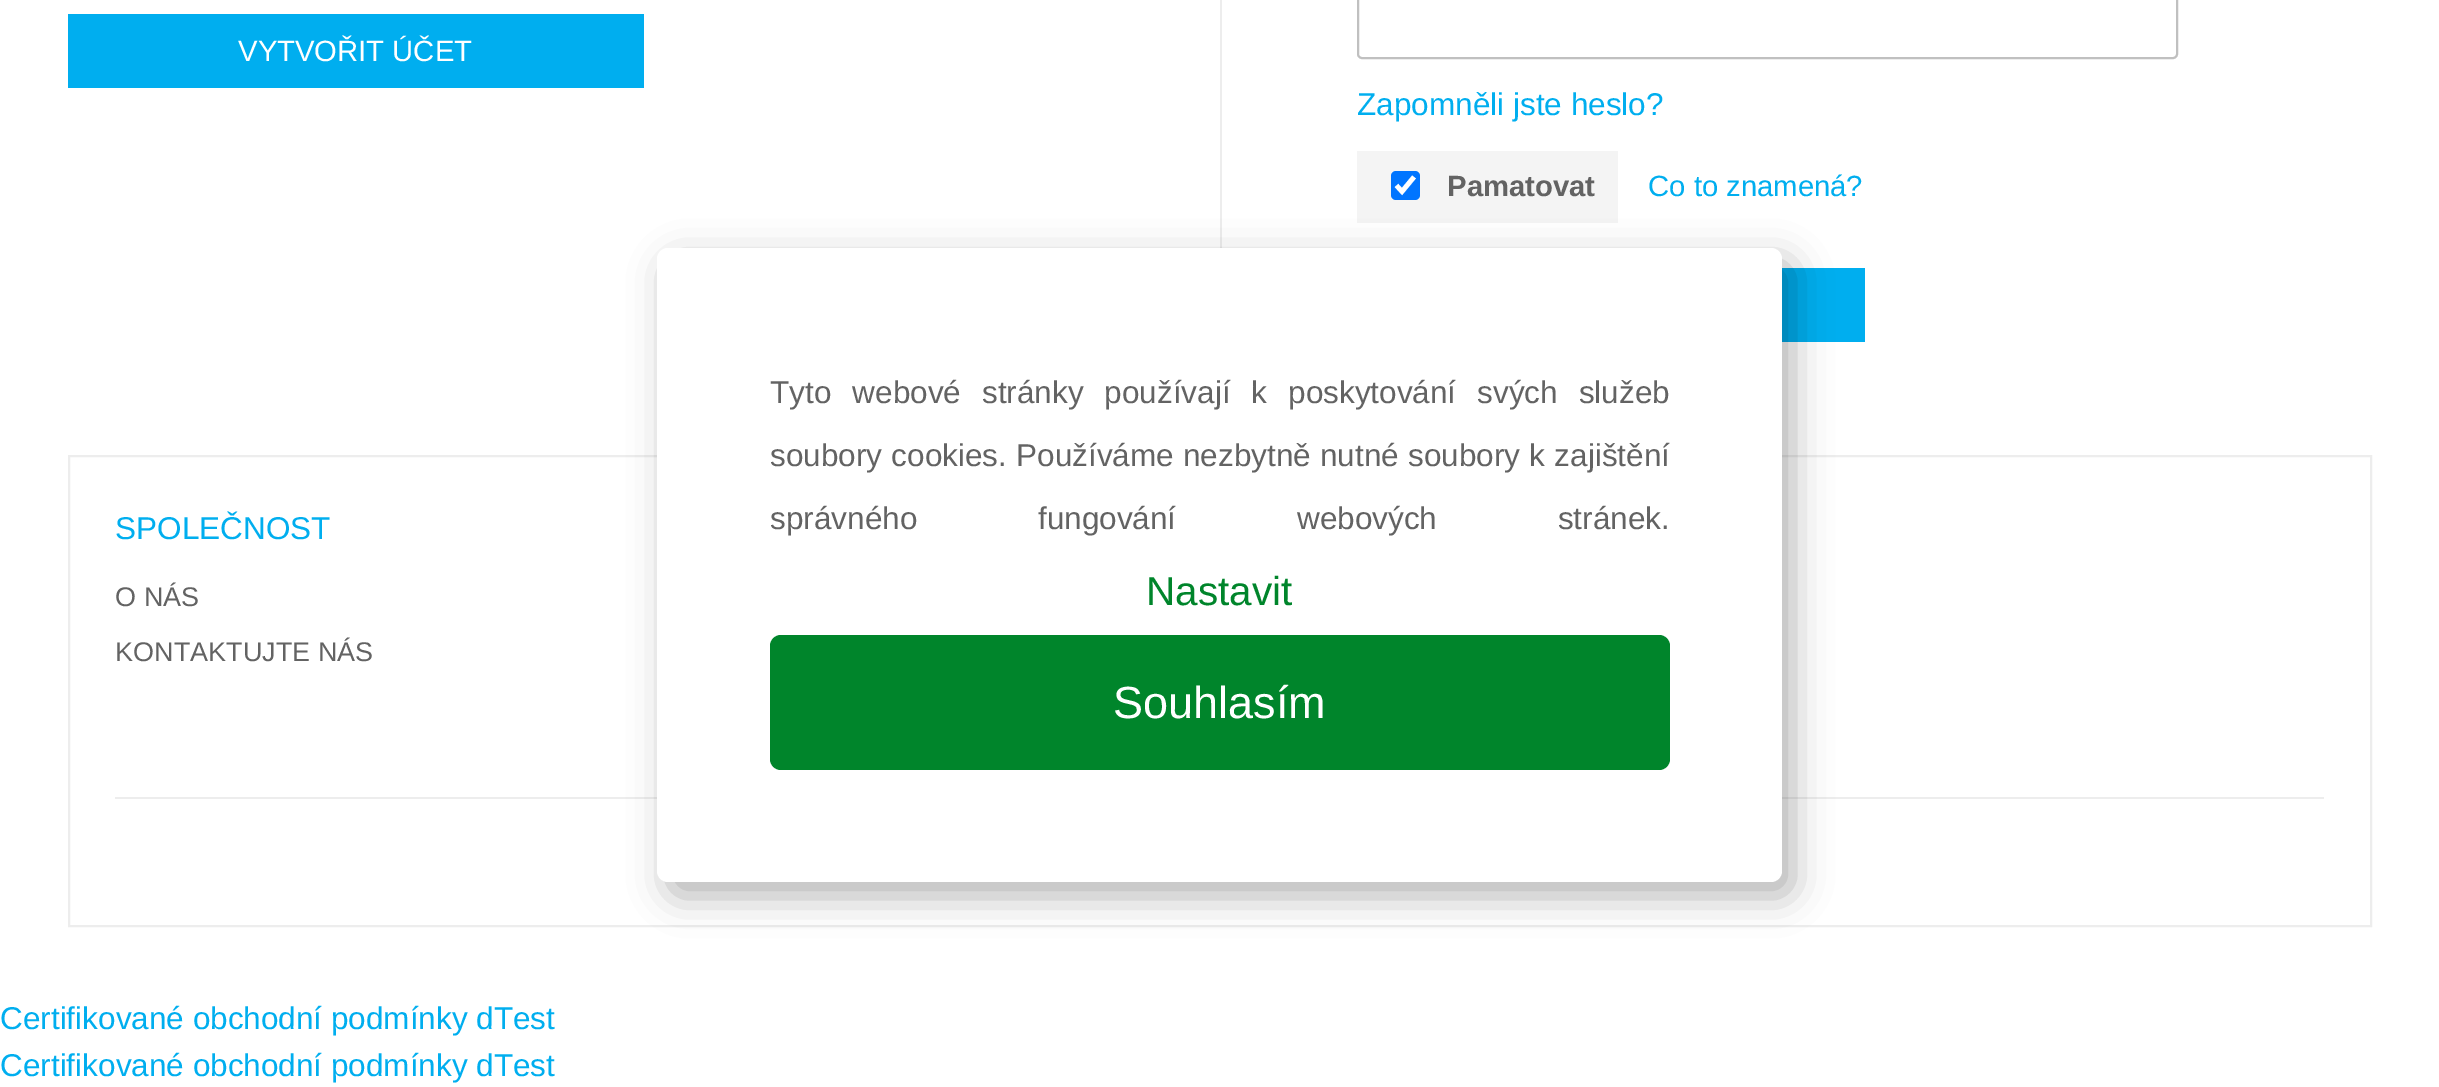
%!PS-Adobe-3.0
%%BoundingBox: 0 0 2439 1087
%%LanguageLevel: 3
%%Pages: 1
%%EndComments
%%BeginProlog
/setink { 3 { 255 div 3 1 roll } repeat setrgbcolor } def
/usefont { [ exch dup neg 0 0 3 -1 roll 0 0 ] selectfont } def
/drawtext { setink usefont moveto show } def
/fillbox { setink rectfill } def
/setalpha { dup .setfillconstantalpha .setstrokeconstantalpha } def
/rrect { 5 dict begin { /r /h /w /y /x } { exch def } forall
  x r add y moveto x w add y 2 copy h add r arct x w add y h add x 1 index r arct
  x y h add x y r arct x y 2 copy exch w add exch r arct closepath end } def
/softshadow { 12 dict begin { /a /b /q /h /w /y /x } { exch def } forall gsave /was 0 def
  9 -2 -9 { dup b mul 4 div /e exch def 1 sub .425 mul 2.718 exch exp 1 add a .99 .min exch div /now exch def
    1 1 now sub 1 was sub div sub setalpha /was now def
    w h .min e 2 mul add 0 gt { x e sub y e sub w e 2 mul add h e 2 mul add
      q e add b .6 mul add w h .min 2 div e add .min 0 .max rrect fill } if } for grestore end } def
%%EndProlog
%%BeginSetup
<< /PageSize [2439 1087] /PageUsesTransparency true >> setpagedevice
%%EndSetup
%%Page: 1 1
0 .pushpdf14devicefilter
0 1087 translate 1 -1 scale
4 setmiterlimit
0 0 2439 1087 255 255 255 fillbox
68 14 576 74 0 174 239 fillbox
(VYTVOŘIT ÚČET) 238 61 /LiberationSans-Regular 29.25 255 255 255 drawtext
1220 0 2 248 237 237 237 fillbox
192 192 192 setink
2 setlinewidth
1358 -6 819 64 4 rrect stroke
(Zapomněli jste heslo?) 1357 115 /LiberationSans-Regular 31.5 0 174 239 drawtext
1357 151 261 72 244 244 244 fillbox
0 117 255 setink
1391 171 29 29 5 rrect fill
255 255 255 setink
4.7 setlinewidth
1396.5 185.5 moveto 1402 191.5 lineto 1414 177 lineto stroke
(Pamatovat) 1447 196 /LiberationSans-Bold 29.25 99 99 99 drawtext
(Co to znamená?) 1648 196 /LiberationSans-Regular 29.25 0 174 239 drawtext
1782 268 83 74 0 174 239 fillbox
237 237 237 setink
2 setlinewidth
69 456 2302 470 rectstroke
(SPOLEČNOST) 115 539 /LiberationSans-Regular 31.5 0 174 239 drawtext
(O NÁS) 115 606 /LiberationSans-Regular 27 99 99 99 drawtext
(KONTAKTUJTE NÁS) 115 661 /LiberationSans-Regular 27 99 99 99 drawtext
115 797 2209 2 237 237 237 fillbox
(Certifikované obchodní podmínky dTest) 0 1029 /LiberationSans-Regular 31.5 0 174 239 drawtext
0 0 0 setink
668 261 1125 635 11 19 0.3 softshadow
255 255 255 setink
657 248 1125 634 11 rrect fill
99 99 99 setink
770 403 moveto 12.25 0 32 (Tyto webové stránky používají k poskytování svých služeb) widthshow
770 466 moveto 0.5 0 32 (soubory cookies. Používáme nezbytně nutné soubory k zajištění) widthshow
770 529 moveto 112 0 32 (správného fungování webových stránek.) widthshow
(Nastavit) 1146 605 /LiberationSans-Regular 40.5 0 133 43 drawtext
770 635 900 135 11 rrect fill
(Souhlasím) 1113 718 /LiberationSans-Regular 45 255 255 255 drawtext
(Certifikované obchodní podmínky dTest) 0 1076 /LiberationSans-Regular 31.5 0 174 239 drawtext
.poppdf14devicefilter showpage
%%EOF
